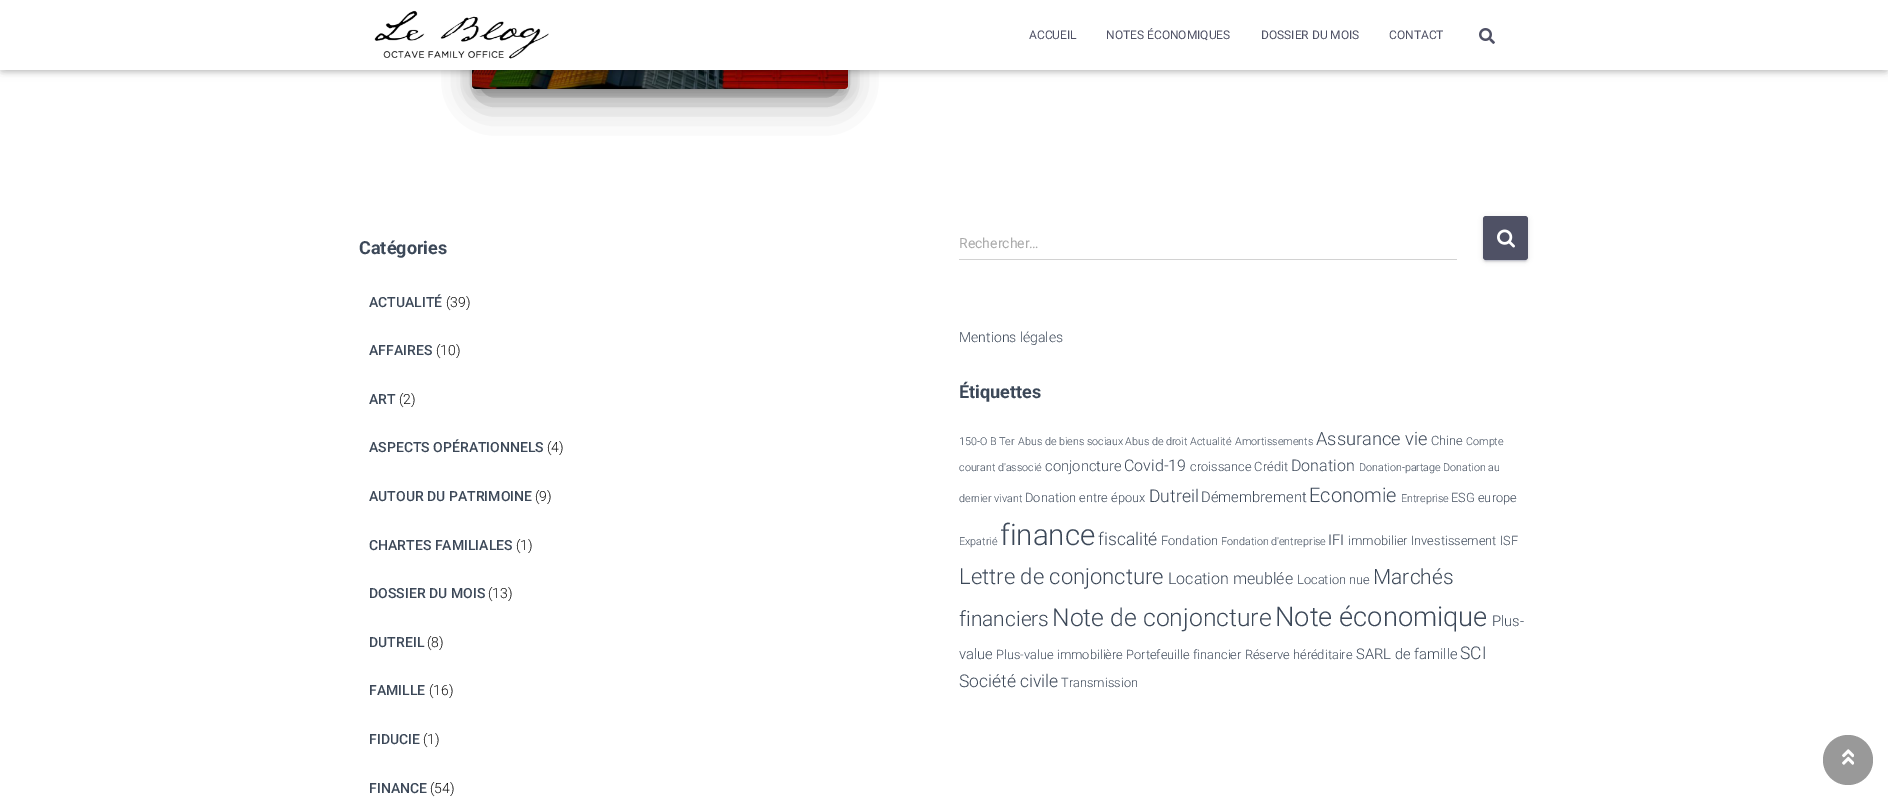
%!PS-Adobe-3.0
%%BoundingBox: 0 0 1888 800
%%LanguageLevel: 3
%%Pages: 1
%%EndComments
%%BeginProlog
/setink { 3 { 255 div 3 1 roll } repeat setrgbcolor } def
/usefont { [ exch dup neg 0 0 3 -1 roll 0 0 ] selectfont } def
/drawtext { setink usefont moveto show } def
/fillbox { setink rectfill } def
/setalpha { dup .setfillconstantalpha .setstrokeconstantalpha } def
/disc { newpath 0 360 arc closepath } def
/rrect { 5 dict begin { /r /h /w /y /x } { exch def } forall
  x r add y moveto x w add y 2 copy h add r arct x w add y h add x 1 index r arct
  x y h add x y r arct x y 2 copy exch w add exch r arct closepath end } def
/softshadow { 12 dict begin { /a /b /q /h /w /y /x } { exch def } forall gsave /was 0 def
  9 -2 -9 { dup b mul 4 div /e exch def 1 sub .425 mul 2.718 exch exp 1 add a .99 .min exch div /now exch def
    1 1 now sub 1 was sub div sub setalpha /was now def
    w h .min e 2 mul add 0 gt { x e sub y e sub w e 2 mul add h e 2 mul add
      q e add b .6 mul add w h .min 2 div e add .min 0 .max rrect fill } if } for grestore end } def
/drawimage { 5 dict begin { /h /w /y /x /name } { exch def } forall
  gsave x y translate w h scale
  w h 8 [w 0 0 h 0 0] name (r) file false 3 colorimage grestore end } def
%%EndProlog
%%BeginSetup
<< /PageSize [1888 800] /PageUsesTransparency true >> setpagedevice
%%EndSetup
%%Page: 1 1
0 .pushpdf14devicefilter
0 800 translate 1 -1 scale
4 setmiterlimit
0 0 1888 800 255 255 255 fillbox
0 0 0 setink
477 -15 366 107 0 5 0.2 softshadow
472 -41 376 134 3 12.5 0.12 softshadow
484 -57 352 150 0 19 0.56 softshadow
(assets/img3.rgb) 472 70 376 19 drawimage
2 6 1884 66 0 2.5 0.1 softshadow
0 1 1888 70 0 5 0.12 softshadow
6 7 1876 58 0 5 0.42 softshadow
0 0 1888 70 255 255 255 fillbox
(assets/img1.rgb) 374 10 175 49 drawimage
(ACCUEIL) 1029 39 /Roboto-Regular 12 79 81 101 drawtext
(NOTES ÉCONOMIQUES) 1106 39 /Roboto-Regular 12 79 81 101 drawtext
(DOSSIER DU MOIS) 1261 39 /Roboto-Regular 12 79 81 101 drawtext
(CONTACT) 1389 39 /Roboto-Regular 12 79 81 101 drawtext
(assets/img2.rgb) 1479 28 16 16 drawimage
(Catégories) 359 254 /Roboto-Bold 18 60 72 88 drawtext
(ACTUALITÉ) 369 307 /Roboto-Medium 14 60 72 88 drawtext
(\(39\)) 446 307 /Roboto-Light 14 10 10 10 drawtext
(AFFAIRES) 369 355 /Roboto-Medium 14 60 72 88 drawtext
(\(10\)) 436 355 /Roboto-Light 14 10 10 10 drawtext
(ART) 369 404 /Roboto-Medium 14 60 72 88 drawtext
(\(2\)) 399 404 /Roboto-Light 14 10 10 10 drawtext
(ASPECTS OPÉRATIONNELS) 369 452 /Roboto-Medium 14 60 72 88 drawtext
(\(4\)) 547 452 /Roboto-Light 14 10 10 10 drawtext
(AUTOUR DU PATRIMOINE) 369 501 /Roboto-Medium 14 60 72 88 drawtext
(\(9\)) 535 501 /Roboto-Light 14 10 10 10 drawtext
(CHARTES FAMILIALES) 369 550 /Roboto-Medium 14 60 72 88 drawtext
(\(1\)) 516 550 /Roboto-Light 14 10 10 10 drawtext
(DOSSIER DU MOIS) 369 598 /Roboto-Medium 14 60 72 88 drawtext
(\(13\)) 488 598 /Roboto-Light 14 10 10 10 drawtext
(DUTREIL) 369 647 /Roboto-Medium 14 60 72 88 drawtext
(\(8\)) 427 647 /Roboto-Light 14 10 10 10 drawtext
(FAMILLE) 369 695 /Roboto-Medium 14 60 72 88 drawtext
(\(16\)) 429 695 /Roboto-Light 14 10 10 10 drawtext
(FIDUCIE) 369 744 /Roboto-Medium 14 60 72 88 drawtext
(\(1\)) 423 744 /Roboto-Light 14 10 10 10 drawtext
(FINANCE) 369 793 /Roboto-Medium 14 60 72 88 drawtext
(\(54\)) 430 793 /Roboto-Light 14 10 10 10 drawtext
(Rechercher…) 959 248 /Roboto-Regular 14 170 170 170 drawtext
959 259 498 1 210 210 210 fillbox
79 81 101 setink
1483 217 45 44 3 2.5 0.12 softshadow
1485 221 41 40 1 0.5 0.2 softshadow
1483 218 45 44 3 1 0.14 softshadow
1483 216 45 44 3 rrect fill
(assets/img4.rgb) 1497 229 18 19 drawimage
(Mentions légales) 959 342 /Roboto-Light 14 60 72 88 drawtext
(Étiquettes) 959 398 /Roboto-Bold 18 60 72 88 drawtext
(150-O B Ter) 959 445 /Roboto-Light 10.75 60 72 88 drawtext
(Abus de biens sociaux) 1018 445 /Roboto-Light 10.75 60 72 88 drawtext
(Abus de droit) 1125 445 /Roboto-Light 10.75 60 72 88 drawtext
(Actualité) 1190 445 /Roboto-Light 10.75 60 72 88 drawtext
(Amortissements) 1235 445 /Roboto-Light 10.75 60 72 88 drawtext
(Assurance vie) 1316 445 /Roboto-Light 18.25 60 72 88 drawtext
(Chine) 1431 445 /Roboto-Light 12.85 60 72 88 drawtext
(Compte) 1466 445 /Roboto-Light 10.75 60 72 88 drawtext
(courant d'associé) 959 471 /Roboto-Light 10.75 60 72 88 drawtext
(conjoncture) 1045 471 /Roboto-Light 14.75 60 72 88 drawtext
(Covid-19) 1124 471 /Roboto-Light 16 60 72 88 drawtext
(croissance Crédit) 1190 471 /Roboto-Light 12.85 60 72 88 drawtext
(Donation) 1291 471 /Roboto-Light 16 60 72 88 drawtext
(Donation-partage) 1359 471 /Roboto-Light 10.75 60 72 88 drawtext
(Donation au) 1443 471 /Roboto-Light 10.75 60 72 88 drawtext
(dernier vivant) 959 502 /Roboto-Light 10.75 60 72 88 drawtext
(Donation entre époux) 1025 502 /Roboto-Light 12.85 60 72 88 drawtext
(Dutreil) 1149 502 /Roboto-Light 17.5 60 72 88 drawtext
(Démembrement) 1201 502 /Roboto-Light 14.75 60 72 88 drawtext
(Economie) 1309 502 /Roboto-Light 20 60 72 88 drawtext
(Entreprise) 1401 502 /Roboto-Light 10.75 60 72 88 drawtext
(ESG europe) 1451 502 /Roboto-Light 12.85 60 72 88 drawtext
(Expatrié) 959 545 /Roboto-Light 10.75 60 72 88 drawtext
(finance) 1000 545 /Roboto-Light 29.5 60 72 88 drawtext
(fiscalité) 1098 545 /Roboto-Light 17.5 60 72 88 drawtext
(Fondation) 1161 545 /Roboto-Light 12.85 60 72 88 drawtext
(Fondation d'entreprise) 1221 545 /Roboto-Light 10.75 60 72 88 drawtext
(IFI) 1328 545 /Roboto-Light 14.75 60 72 88 drawtext
(immobilier Investissement ISF) 1348 545 /Roboto-Light 12.85 60 72 88 drawtext
(Lettre de conjoncture) 959 584 /Roboto-Light 22 60 72 88 drawtext
(Location meublée) 1168 584 /Roboto-Light 16 60 72 88 drawtext
(Location nue) 1297 584 /Roboto-Light 12.85 60 72 88 drawtext
(Marchés) 1373 584 /Roboto-Light 21 60 72 88 drawtext
(financiers) 959 626 /Roboto-Light 21 60 72 88 drawtext
(Note de conjoncture) 1052 626 /Roboto-Light 24.75 60 72 88 drawtext
(Note économique) 1275 626 /Roboto-Light 27.25 60 72 88 drawtext
(Plus-) 1492 626 /Roboto-Light 14.75 60 72 88 drawtext
(value) 959 659 /Roboto-Light 14.75 60 72 88 drawtext
(Plus-value immobilière Portefeuille financier Réserve héréditaire) 996 659 /Roboto-Light 12.85 60 72 88 drawtext
(SARL de famille) 1356 659 /Roboto-Light 14.75 60 72 88 drawtext
(SCI) 1460 659 /Roboto-Light 17.5 60 72 88 drawtext
(Société civile) 959 687 /Roboto-Light 17.5 60 72 88 drawtext
(Transmission) 1061 687 /Roboto-Light 12.85 60 72 88 drawtext
153 153 153 setink
1848 760 25 disc fill
(assets/img5.rgb) 1842 749 12 16 drawimage
.poppdf14devicefilter showpage
%%EOF
